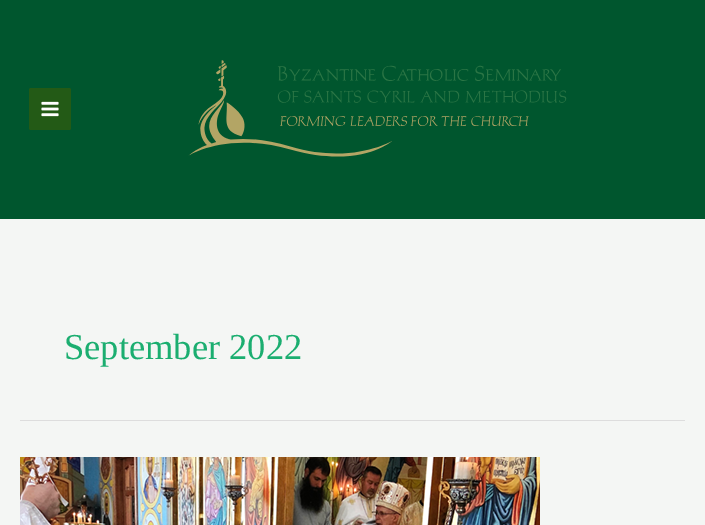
%!PS-Adobe-3.0
%%BoundingBox: 0 0 705 525
%%LanguageLevel: 3
%%Pages: 1
%%EndComments
%%BeginProlog
/setink { 3 { 255 div 3 1 roll } repeat setrgbcolor } def
/usefont { [ exch dup neg 0 0 3 -1 roll 0 0 ] selectfont } def
/drawtext { setink usefont moveto show } def
/fillbox { setink rectfill } def
/rrect { 5 dict begin { /r /h /w /y /x } { exch def } forall
  x r add y moveto x w add y 2 copy h add r arct x w add y h add x 1 index r arct
  x y h add x y r arct x y 2 copy exch w add exch r arct closepath end } def
/drawimage { 5 dict begin { /h /w /y /x /name } { exch def } forall
  gsave x y translate w h scale
  w h 8 [w 0 0 h 0 0] name (r) file false 3 colorimage grestore end } def
%%EndProlog
%%BeginSetup
<< /PageSize [705 525] >> setpagedevice
%%EndSetup
%%Page: 1 1
0 525 translate 1 -1 scale
4 setmiterlimit
0 0 705 525 244 246 244 fillbox
0 0 705 219 0 86 46 fillbox
35 90 22 setink
29 88 42 42 2 rrect fill
(assets/img1.rgb) 41 101 18 16 drawimage
(assets/img2.rgb) 188 60 379 97 drawimage
20 420 665 1 221 221 221 fillbox
(September 2022) 64 359 /LiberationSerif-Regular 36.5 27 174 112 drawtext
(assets/img3.rgb) 20 457 520 68 drawimage
showpage
%%EOF
